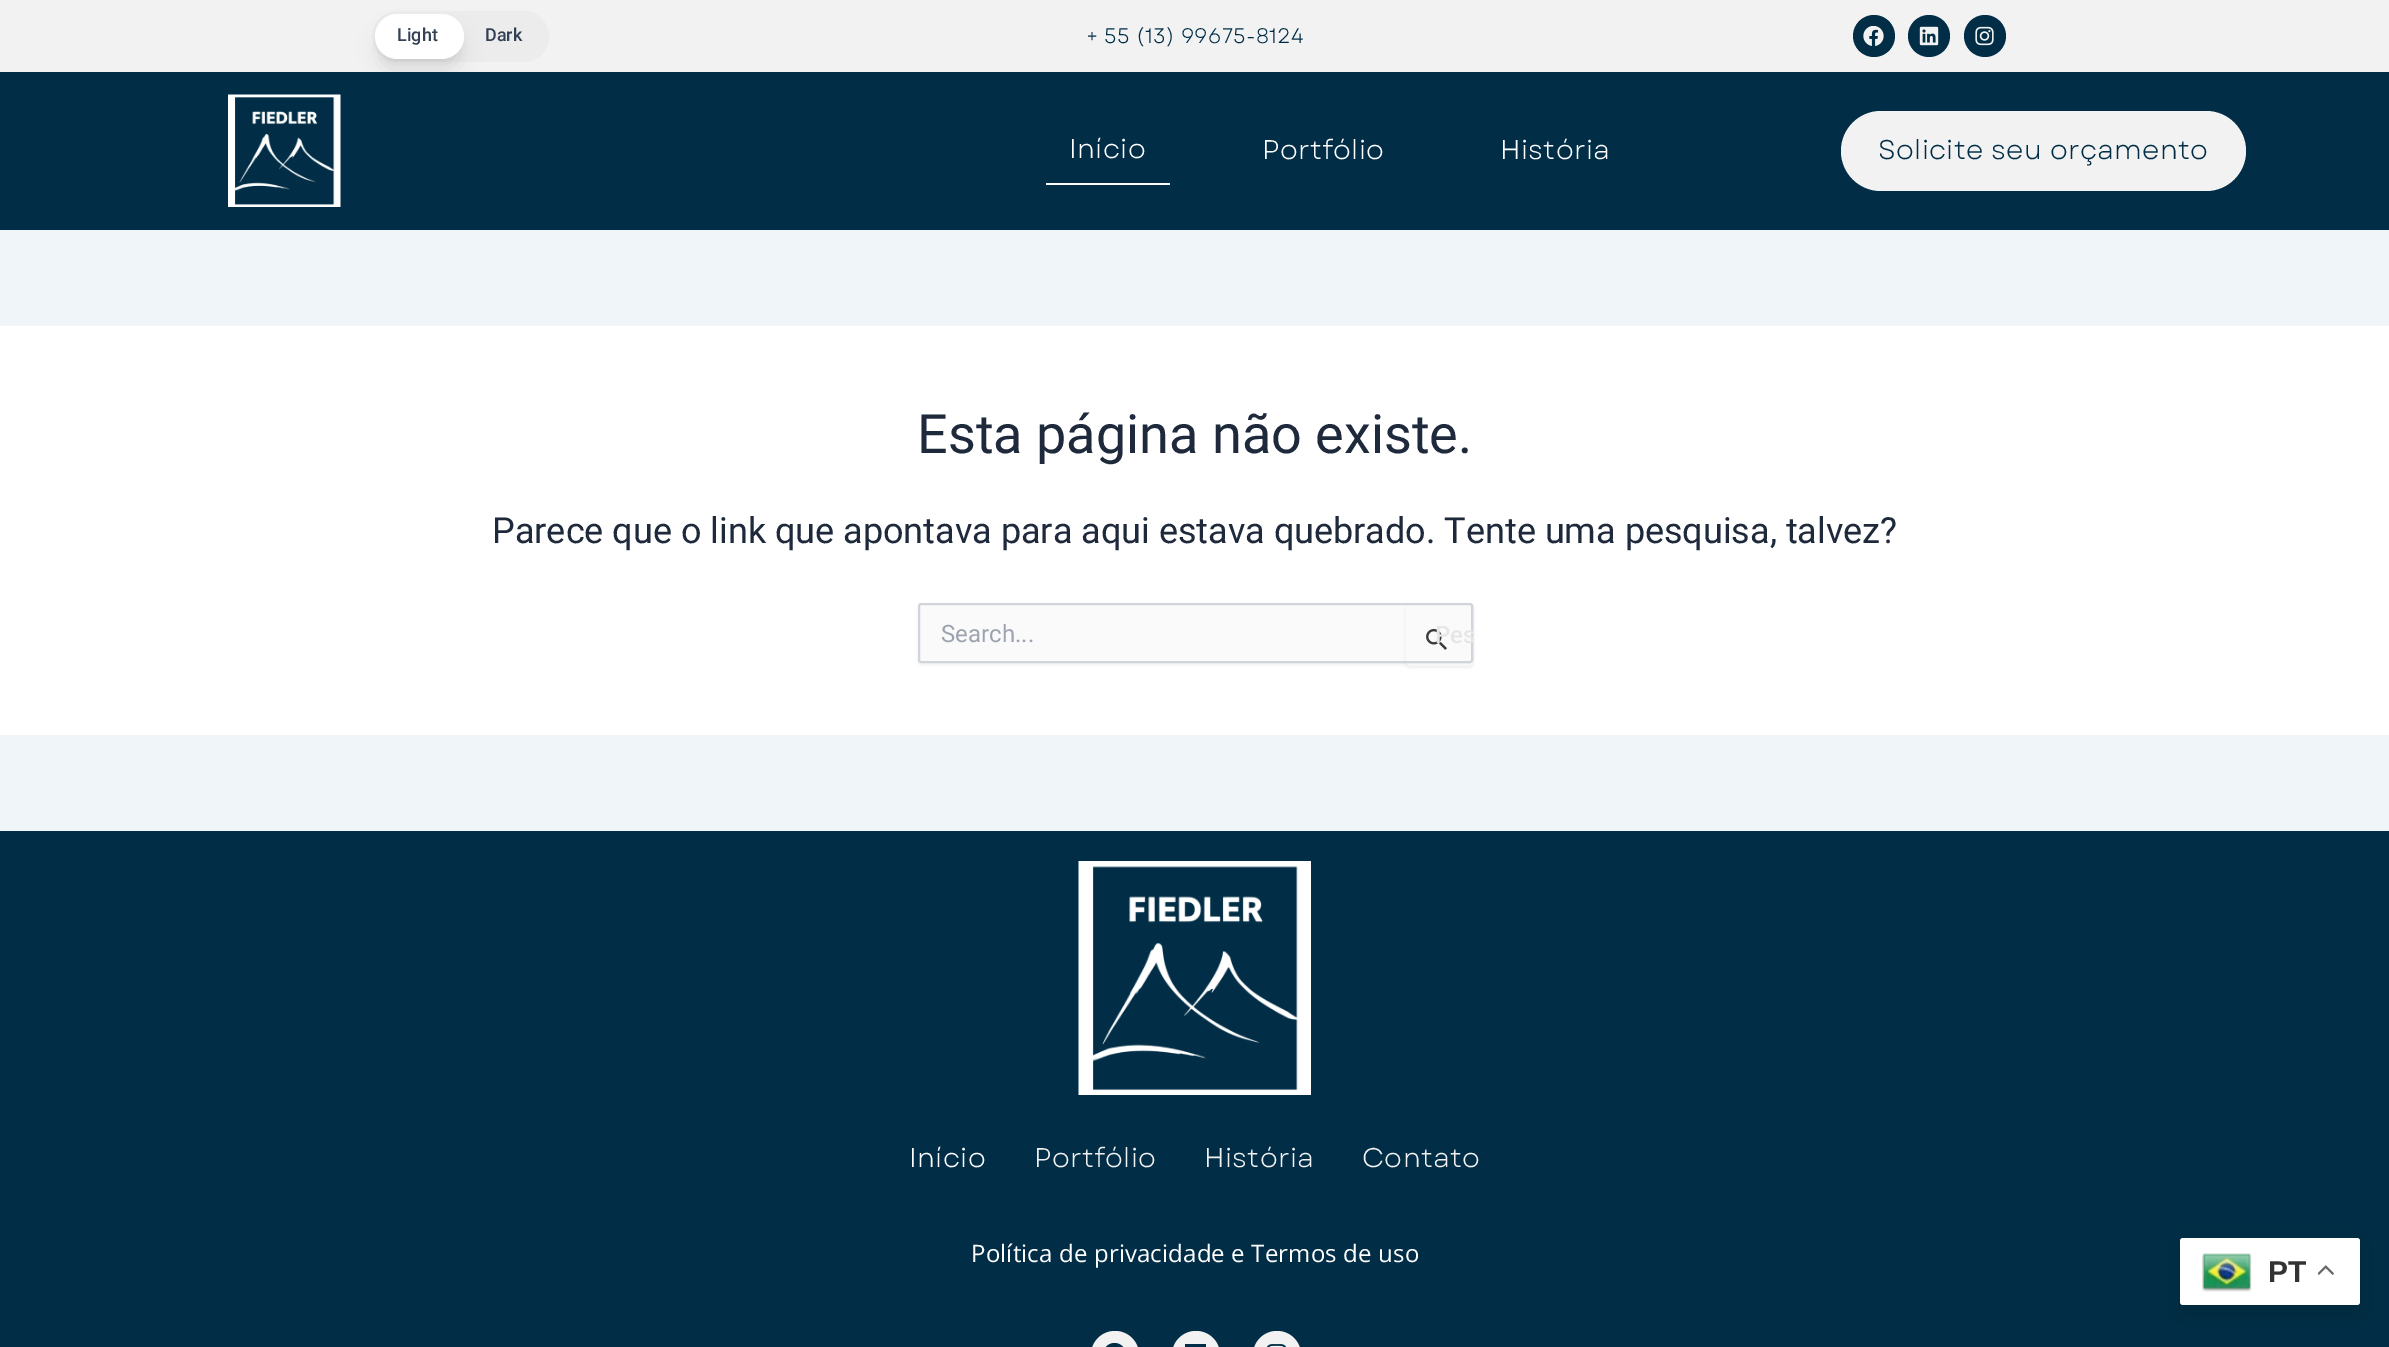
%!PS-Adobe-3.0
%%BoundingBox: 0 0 2389 1347
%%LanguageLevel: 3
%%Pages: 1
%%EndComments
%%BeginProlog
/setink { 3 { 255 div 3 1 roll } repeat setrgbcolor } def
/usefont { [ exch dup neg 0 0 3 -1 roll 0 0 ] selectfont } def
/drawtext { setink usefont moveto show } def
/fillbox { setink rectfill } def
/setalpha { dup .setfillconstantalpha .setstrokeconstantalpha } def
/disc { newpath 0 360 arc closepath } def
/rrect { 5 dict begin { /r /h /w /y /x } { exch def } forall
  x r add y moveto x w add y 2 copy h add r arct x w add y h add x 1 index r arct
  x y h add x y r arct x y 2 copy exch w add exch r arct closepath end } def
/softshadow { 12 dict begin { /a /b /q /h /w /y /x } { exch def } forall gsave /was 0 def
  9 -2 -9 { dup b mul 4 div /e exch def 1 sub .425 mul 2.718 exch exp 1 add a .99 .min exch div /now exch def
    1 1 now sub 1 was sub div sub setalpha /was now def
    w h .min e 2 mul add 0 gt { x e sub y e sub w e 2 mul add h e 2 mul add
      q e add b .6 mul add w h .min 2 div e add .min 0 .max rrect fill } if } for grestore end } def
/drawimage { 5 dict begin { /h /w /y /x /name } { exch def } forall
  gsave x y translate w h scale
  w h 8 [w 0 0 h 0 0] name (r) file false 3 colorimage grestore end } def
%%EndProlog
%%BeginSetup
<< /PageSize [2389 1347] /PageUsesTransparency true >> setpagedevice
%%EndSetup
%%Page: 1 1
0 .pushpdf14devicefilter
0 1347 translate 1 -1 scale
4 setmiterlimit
0 0 2389 1347 240 245 250 fillbox
0 0 2389 72 242 242 242 fillbox
236 236 236 setink
372 11 177 51 25.5 rrect fill
0 0 0 setink
381 26 77 33 16.5 4.5 0.1 softshadow
380 33 79 36 18 11 0.1 softshadow
255 255 255 setink
375 14 89 45 22.5 rrect fill
(Light) 397 41 /Roboto-Medium 18 51 65 85 drawtext
(Dark) 485 41 /Roboto-Medium 18 51 65 85 drawtext
/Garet-Regular 21 usefont
1 46 70 setink
1086 43 moveto 0.3 0 (+ 55 \(13\) 99675-8124) ashow
1874 36 21 disc fill
(assets/img1.rgb) 1863 26 21 20 drawimage
1929 36 21 disc fill
(assets/img2.rgb) 1919 26 20 20 drawimage
1985 36 21 disc fill
(assets/img3.rgb) 1975 26 19 20 drawimage
0 72 2389 158 1 46 70 fillbox
(assets/img4.rgb) 228 94 113 113 drawimage
1046 183 124 2 255 255 255 fillbox
/Garet-Regular 27 usefont
1069 158 moveto 0.3 0 (Início) ashow
1262 159 moveto 0.3 0 (Portfólio) ashow
1500 159 moveto 0.3 0 (História) ashow
242 242 242 setink
1841 111 405 80 40 rrect fill
1 46 70 setink
1878 159 moveto 0.3 0 (Solicite seu orçamento) ashow
0 326 2389 409 255 255 255 fillbox
(Esta página não existe.) 917 453 /Roboto-Regular 54 30 41 59 drawtext
(Parece que o link que apontava para aqui estava quebrado. Tente uma pesquisa, talvez?) 492 543 /Roboto-Regular 36 30 41 59 drawtext
0 0 0 setink
918 605 555 60 3 1.5 0.05 softshadow
250 250 250 setink
919 604 553 58 2 rrect gsave fill grestore
209 213 219 setink
2 setlinewidth
stroke
(Search...) 941 642 /Roboto-Regular 24 156 163 175 drawtext
(assets/img5.rgb) 1426 629 21 21 drawimage
gsave
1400 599 moveto 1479 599 lineto 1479 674 lineto 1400 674 lineto closepath 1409 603 moveto 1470 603 lineto 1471.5 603 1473 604.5 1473 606 curveto 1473 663 lineto 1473 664.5 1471.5 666 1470 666 curveto 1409 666 lineto 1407.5 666 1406 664.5 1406 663 curveto 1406 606 lineto 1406 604.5 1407.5 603 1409 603 curveto closepath eoclip newpath
0 0 0 setink
1406 605 67 63 3 1.5 0.05 softshadow
grestore
gsave
1406 603 67 63 3 rrect clip newpath
(Pes) 1435 643 /Roboto-Medium 24 230 230 231 drawtext
grestore
0 831 2389 516 1 46 70 fillbox
(assets/img6.rgb) 1078 861 233 234 drawimage
/Garet-Regular 27 usefont
255 255 255 setink
909 1167 moveto 0.3 0 (Início) ashow
242 242 242 setink
1034 1167 moveto 0.3 0 (Portfólio) ashow
1204 1167 moveto 0.3 0 (História) ashow
1362 1167 moveto 0.3 0 (Contato) ashow
/OpenSans-Regular 24 usefont
255 255 255 setink
971 1262 moveto 0.15 0 (Política de privacidade e Termos de uso) ashow
242 242 242 setink
1091 1331 48 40 24 rrect fill
(assets/img7.rgb) 1105 1343 19 4 drawimage
1172 1331 48 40 24 rrect fill
1185 1344 21 3 1 46 70 fillbox
242 242 242 setink
1253 1331 48 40 24 rrect fill
(assets/img8.rgb) 1267 1344 19 3 drawimage
0 0 0 setink
2180 1245 180 68 3 11 0.15 softshadow
255 255 255 setink
2180 1238 180 67 3 rrect fill
(assets/img9.rgb) 2202 1253 50 39 drawimage
(PT) 2268 1282 /LiberationSans-Bold 30 51 51 51 drawtext
(assets/img10.rgb) 2318 1265 16 10 drawimage
.poppdf14devicefilter showpage
%%EOF
